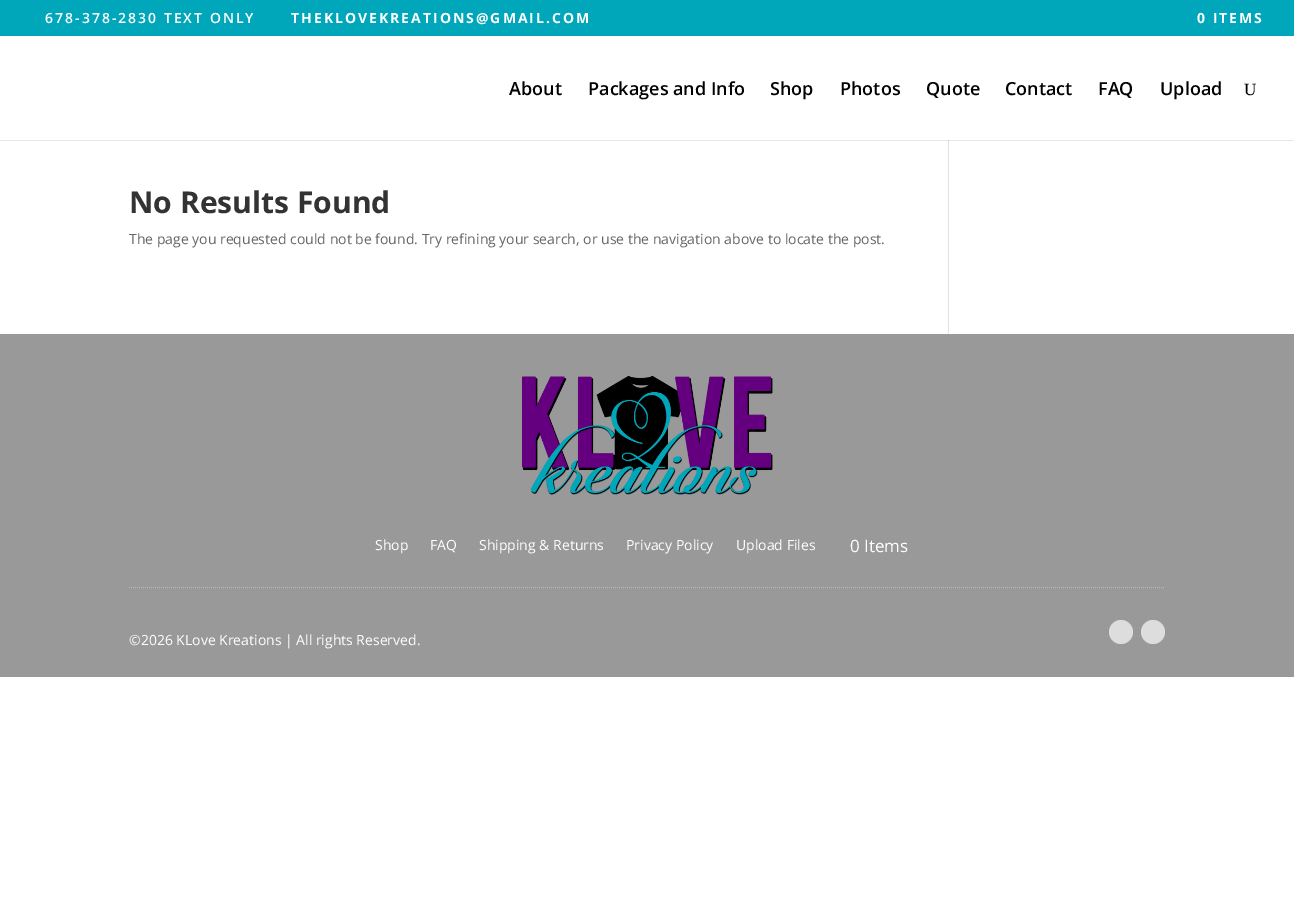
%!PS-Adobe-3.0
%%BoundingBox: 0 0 1294 923
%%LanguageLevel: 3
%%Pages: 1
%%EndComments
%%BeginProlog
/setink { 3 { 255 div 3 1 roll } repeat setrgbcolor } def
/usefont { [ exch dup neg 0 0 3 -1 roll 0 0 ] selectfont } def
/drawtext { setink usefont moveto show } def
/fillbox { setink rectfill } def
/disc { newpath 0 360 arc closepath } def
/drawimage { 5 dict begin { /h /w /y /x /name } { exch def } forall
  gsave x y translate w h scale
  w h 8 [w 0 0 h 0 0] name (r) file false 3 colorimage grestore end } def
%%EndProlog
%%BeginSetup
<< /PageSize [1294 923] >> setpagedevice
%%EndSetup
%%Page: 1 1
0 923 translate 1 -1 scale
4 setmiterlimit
0 0 1294 923 255 255 255 fillbox
0 140 1294 1 230 230 230 fillbox
0 0 1294 36 0 167 186 fillbox
/OpenSans-SemiBold 14 usefont
255 255 255 setink
45 23 moveto 2 0 (678-378-2830 TEXT ONLY) ashow
/OpenSans-Bold 14 usefont
291 23 moveto 2 0 (THEKLOVEKREATIONS@GMAIL.COM) ashow
1197 23 moveto 2 0 (0 ITEMS) ashow
(About) 509 95 /OpenSans-SemiBold 18 0 0 0 drawtext
(Packages and Info) 588 95 /OpenSans-SemiBold 18 0 0 0 drawtext
(Shop) 770 95 /OpenSans-SemiBold 18 0 0 0 drawtext
(Photos) 840 95 /OpenSans-SemiBold 18 0 0 0 drawtext
(Quote) 926 95 /OpenSans-SemiBold 18 0 0 0 drawtext
(Contact) 1005 95 /OpenSans-SemiBold 18 0 0 0 drawtext
(FAQ) 1098 95 /OpenSans-SemiBold 18 0 0 0 drawtext
(Upload) 1160 95 /OpenSans-SemiBold 18 0 0 0 drawtext
(U) 1244 95 /LiberationSerif-Regular 17 0 0 0 drawtext
(No Results Found) 129 213 /OpenSans-Bold 30 51 51 51 drawtext
(The page you requested could not be found. Try refining your search, or use the navigation above to locate the post.) 129 244 /OpenSans-Regular 14 102 102 102 drawtext
948 141 1 193 226 226 226 fillbox
948 140 1 1 203 203 203 fillbox
0 334 1294 343 153 153 153 fillbox
(assets/img1.rgb) 521 375 252 120 drawimage
(Shop) 375 550 /OpenSans-Regular 14 255 255 255 drawtext
(FAQ) 430 550 /OpenSans-Regular 14 255 255 255 drawtext
(Shipping & Returns) 479 550 /OpenSans-Regular 14 255 255 255 drawtext
(Privacy Policy) 626 550 /OpenSans-Regular 14 255 255 255 drawtext
(Upload Files) 736 550 /OpenSans-Regular 14 255 255 255 drawtext
(0 Items) 850 552 /OpenSans-Regular 17 255 255 255 drawtext
184 184 184 setink
[1 1] 0 setdash
129 587.5 moveto 1165 587.5 lineto stroke
(©2026 KLove Kreations | All rights Reserved.) 129 645 /OpenSans-Regular 14 255 255 255 drawtext
221 221 221 setink
1121 632 12 disc fill
1153 632 12 disc fill
showpage
%%EOF
